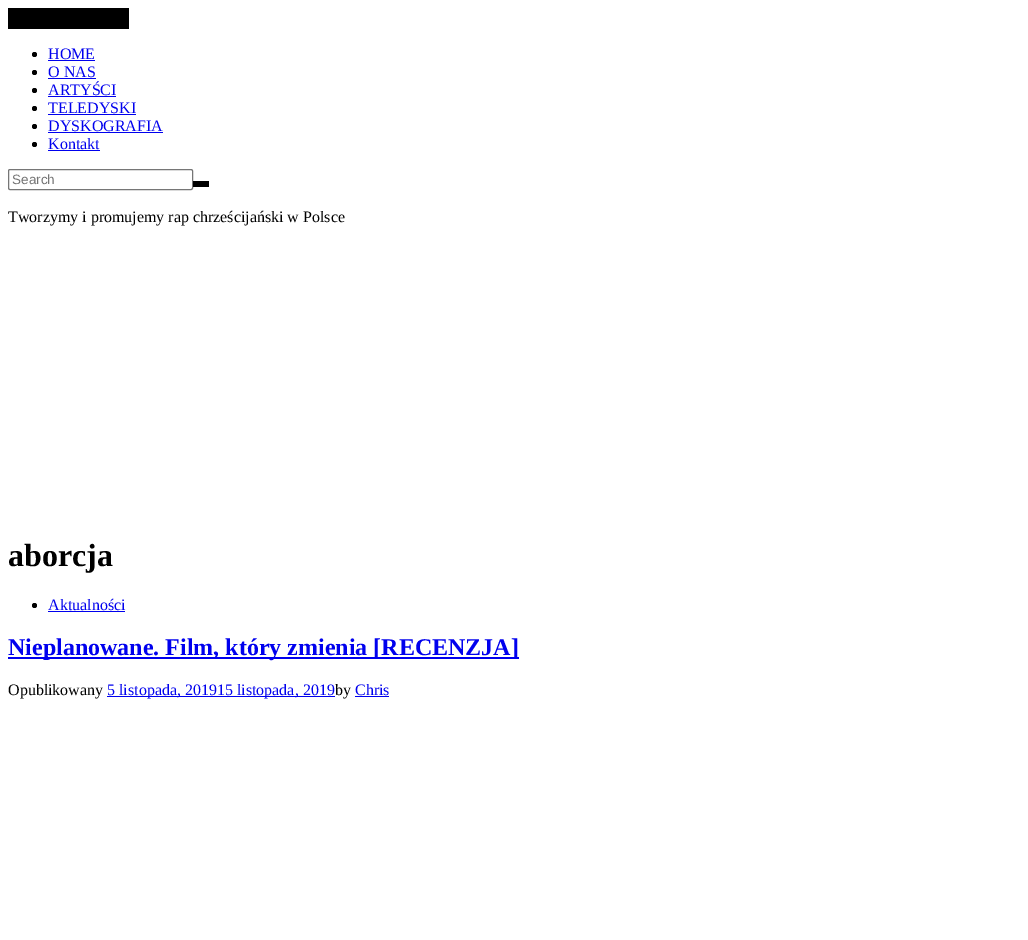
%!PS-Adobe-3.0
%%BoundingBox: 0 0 1028 940
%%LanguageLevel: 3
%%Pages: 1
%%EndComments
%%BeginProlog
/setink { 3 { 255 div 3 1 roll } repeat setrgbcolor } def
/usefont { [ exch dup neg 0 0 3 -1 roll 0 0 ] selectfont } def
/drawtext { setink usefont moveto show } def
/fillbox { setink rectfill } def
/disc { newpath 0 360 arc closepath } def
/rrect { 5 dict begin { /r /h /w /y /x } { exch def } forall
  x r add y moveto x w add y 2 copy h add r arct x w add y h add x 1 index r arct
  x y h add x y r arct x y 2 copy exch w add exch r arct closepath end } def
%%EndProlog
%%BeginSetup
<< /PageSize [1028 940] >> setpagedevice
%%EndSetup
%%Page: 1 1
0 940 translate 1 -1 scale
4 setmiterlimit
0 0 1028 940 255 255 255 fillbox
8 8 121 21 0 0 0 fillbox
34.5 54.5 2.5 disc fill
(HOME) 48 59 /LiberationSerif-Regular 16 0 0 238 drawtext
48 60 47 1 0 0 238 fillbox
0 0 0 setink
34.5 72.5 2.5 disc fill
(O NAS) 48 77 /LiberationSerif-Regular 16 0 0 238 drawtext
48 78 48 1 0 0 238 fillbox
0 0 0 setink
34.5 90.5 2.5 disc fill
(ARTYŚCI) 48 95 /LiberationSerif-Regular 16 0 0 238 drawtext
48 96 68 1 0 0 238 fillbox
0 0 0 setink
34.5 108.5 2.5 disc fill
(TELEDYSKI) 48 113 /LiberationSerif-Regular 16 0 0 238 drawtext
48 114 88 1 0 0 238 fillbox
0 0 0 setink
34.5 126.5 2.5 disc fill
(DYSKOGRAFIA) 48 131 /LiberationSerif-Regular 16 0 0 238 drawtext
48 132 115 1 0 0 238 fillbox
0 0 0 setink
34.5 144.5 2.5 disc fill
(Kontakt) 48 149 /LiberationSerif-Regular 16 0 0 238 drawtext
48 150 52 1 0 0 238 fillbox
118 118 118 setink
8.5 169.5 184 20 1.5 rrect stroke
(Search) 12 184 /LiberationSans-Regular 13.5 117 117 117 drawtext
193 181 16 6 0 0 0 fillbox
(Tworzymy i promujemy rap chrześcijański w Polsce) 8 222 /LiberationSerif-Regular 16 0 0 0 drawtext
(aborcja) 8 566 /LiberationSerif-Bold 32 0 0 0 drawtext
34.5 605.5 2.5 disc fill
(Aktualności) 48 610 /LiberationSerif-Regular 16 0 0 238 drawtext
48 611 77 1 0 0 238 fillbox
8 657 511 2 0 0 238 fillbox
(Nieplanowane. Film, który zmienia [RECENZJA]) 8 655 /LiberationSerif-Bold 24 0 0 238 drawtext
(Opublikowany) 8 695 /LiberationSerif-Regular 16 0 0 0 drawtext
107 696 228 1 0 0 238 fillbox
(5 listopada, 201915 listopada, 2019) 107 695 /LiberationSerif-Regular 16 0 0 238 drawtext
(by) 335 695 /LiberationSerif-Regular 16 0 0 0 drawtext
(Chris) 355 695 /LiberationSerif-Regular 16 0 0 238 drawtext
355 696 34 1 0 0 238 fillbox
showpage
%%EOF
